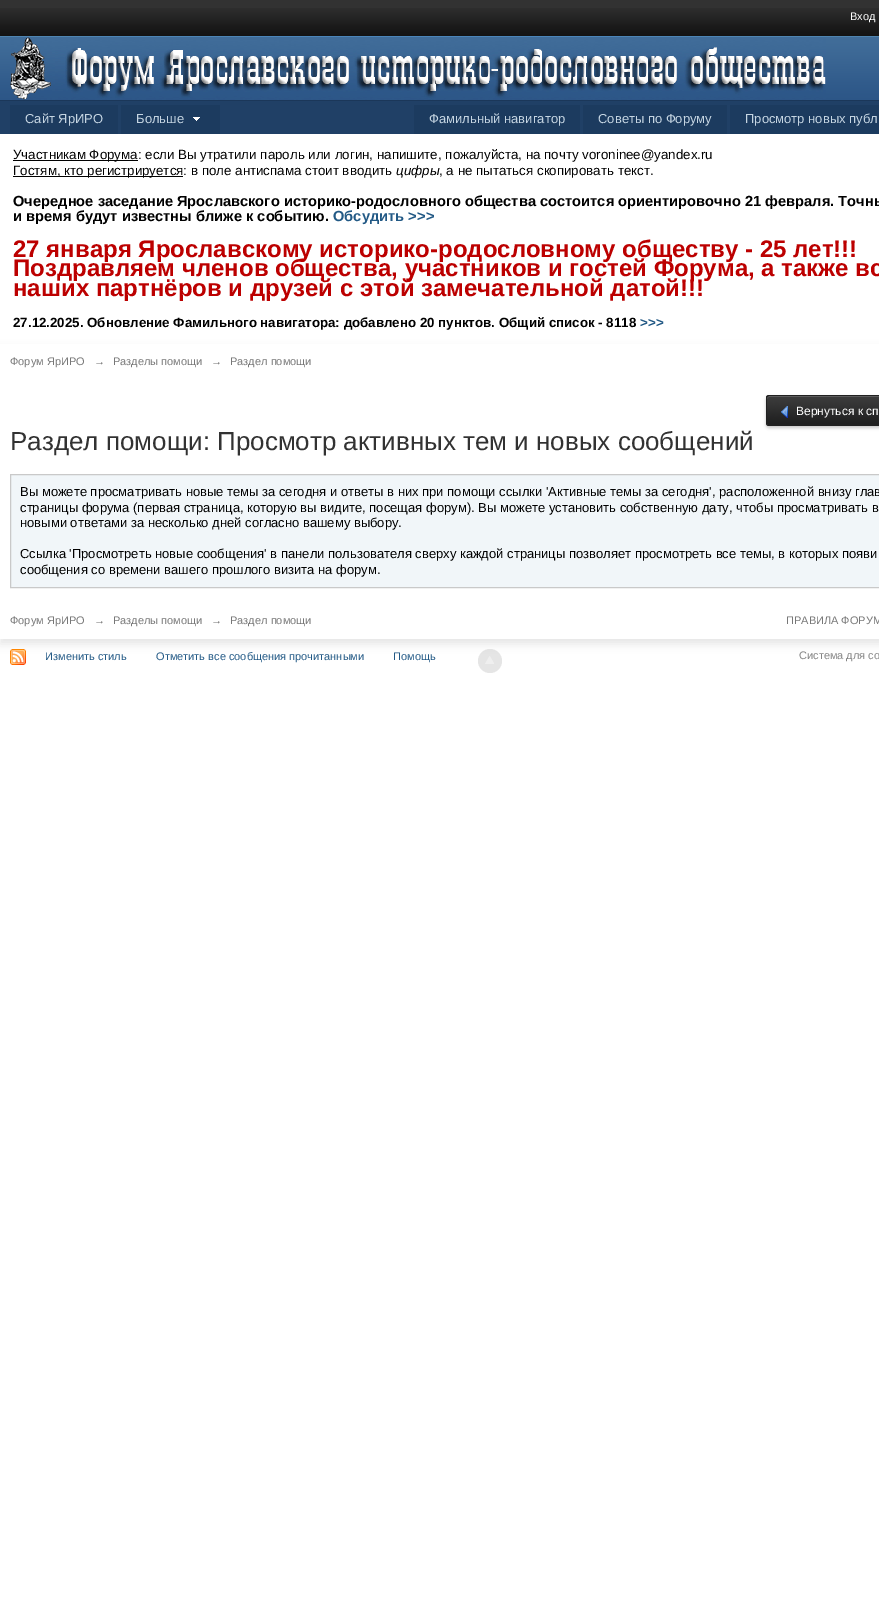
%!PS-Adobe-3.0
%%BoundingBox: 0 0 879 1602
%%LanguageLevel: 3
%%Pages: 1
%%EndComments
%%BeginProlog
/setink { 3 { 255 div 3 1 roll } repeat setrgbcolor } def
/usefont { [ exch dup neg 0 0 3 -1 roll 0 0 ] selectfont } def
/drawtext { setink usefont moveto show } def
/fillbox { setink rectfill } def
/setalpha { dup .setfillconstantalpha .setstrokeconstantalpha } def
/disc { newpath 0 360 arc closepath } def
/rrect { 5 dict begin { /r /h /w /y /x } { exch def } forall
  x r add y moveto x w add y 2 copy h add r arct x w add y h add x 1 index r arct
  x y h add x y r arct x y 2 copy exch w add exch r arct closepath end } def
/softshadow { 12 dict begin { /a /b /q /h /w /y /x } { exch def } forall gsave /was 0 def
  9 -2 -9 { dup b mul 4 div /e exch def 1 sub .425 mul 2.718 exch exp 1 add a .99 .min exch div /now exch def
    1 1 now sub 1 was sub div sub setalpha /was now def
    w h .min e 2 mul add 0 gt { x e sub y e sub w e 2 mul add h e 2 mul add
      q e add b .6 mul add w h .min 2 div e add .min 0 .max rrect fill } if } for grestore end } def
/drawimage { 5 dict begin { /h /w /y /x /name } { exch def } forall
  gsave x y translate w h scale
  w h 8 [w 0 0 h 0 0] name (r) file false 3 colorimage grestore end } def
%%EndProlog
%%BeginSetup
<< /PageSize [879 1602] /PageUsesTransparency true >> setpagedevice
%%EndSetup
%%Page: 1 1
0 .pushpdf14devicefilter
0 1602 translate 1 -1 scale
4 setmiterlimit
0 0 879 1602 255 255 255 fillbox
0 0 879 8 50 50 50 fillbox
(assets/img1.rgb) 0 8 879 28 drawimage
(Вход) 850 20 /LiberationSans-Regular 11 255 255 255 drawtext
(assets/img2.rgb) 0 36 879 64 drawimage
0 100 879 1 27 55 89 fillbox
(assets/img3.rgb) 10 36 816 64 drawimage
0 101 879 33 32 64 102 fillbox
10 105 108 29 28 59 95 fillbox
(Сайт ЯрИРО) 25 123 /LiberationSans-Regular 13 197 213 226 drawtext
121 105 99 29 28 59 95 fillbox
(Больше) 136 123 /LiberationSans-Regular 13 197 213 226 drawtext
(assets/img4.rgb) 193 117 7 4 drawimage
414 105 166 29 28 59 95 fillbox
(Фамильный навигатор) 429 123 /LiberationSans-Regular 13 197 213 226 drawtext
583 105 144 29 28 59 95 fillbox
(Советы по Форуму) 598 123 /LiberationSans-Regular 13 197 213 226 drawtext
730 105 149 29 28 59 95 fillbox
(Просмотр новых публ) 745 123 /LiberationSans-Regular 13 197 213 226 drawtext
13 160 125 1 0 0 0 fillbox
(Участникам Форума: если Вы утратили пароль или логин, напишите, пожалуйста, на почту voroninee@yandex.ru) 13 159 /LiberationSans-Regular 13.33 0 0 0 drawtext
13 176 170 1 0 0 0 fillbox
(Гостям, кто регистрируется: в поле антиспама стоит вводить) 13 175 /LiberationSans-Regular 13.33 0 0 0 drawtext
(цифры) 396 175 /LiberationSans-Italic 13.33 0 0 0 drawtext
(, а не пытаться скопировать текст.) 439 175 /LiberationSans-Regular 13.33 0 0 0 drawtext
(Очередное заседание Ярославского историко-родословного общества состоится ориентировочно 21 февраля. Точны) 13 206 /LiberationSans-Bold 14.67 0 0 0 drawtext
(и время будут известны ближе к событию.) 13 221 /LiberationSans-Bold 14.67 0 0 0 drawtext
(Обсудить >>>) 333 221 /LiberationSans-Bold 14.67 34 89 133 drawtext
(27 января Ярославскому историко-родословному обществу - 25 лет!!!) 13 257 /LiberationSans-Bold 24 188 0 0 drawtext
(Поздравляем членов общества, участников и гостей Форума, а также вс) 13 276 /LiberationSans-Bold 24 188 0 0 drawtext
(наших партнёров и друзей с этой замечательной датой!!!) 13 296 /LiberationSans-Bold 24 188 0 0 drawtext
(27.12.2025. Обновление Фамильного навигатора: добавлено 20 пунктов. Общий список - 8118) 13 327 /LiberationSans-Bold 13.33 0 0 0 drawtext
(>>>) 640 327 /LiberationSans-Bold 13.33 34 89 133 drawtext
0 0 0 setink
0 349 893 295 0 4.5 0.1 softshadow
0 344 879 295 255 255 255 fillbox
(Форум ЯрИРО) 10 365 /LiberationSans-Regular 11 119 119 119 drawtext
(→) 94 365 /LiberationSans-Regular 11 119 119 119 drawtext
(Разделы помощи) 113 365 /LiberationSans-Regular 11 119 119 119 drawtext
(→) 211 365 /LiberationSans-Regular 11 119 119 119 drawtext
(Раздел помощи) 230 365 /LiberationSans-Regular 11 119 119 119 drawtext
0 0 0 setink
766 397 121 31 3 1.5 0.2 softshadow
33 33 33 setink
769 396 moveto 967 396 lineto 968 396 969 397 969 398 curveto 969 423 lineto 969 425 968 426 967 426 curveto 769 426 lineto 768 426 767 425 767 423 curveto 767 398 lineto 767 397 768 396 769 396 curveto closepath fill
(assets/img5.rgb) 766 396 113 28 drawimage
92 92 92 setink
769 397 moveto 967 397 lineto 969 398 lineto 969 399 lineto 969 398 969 396 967 396 curveto 769 396 lineto 767 396 767 398 767 399 curveto 767 398 768 397 769 397 curveto closepath fill
33 33 33 setink
769 395 moveto 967 395 lineto 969 395 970 396 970 398 curveto 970 423 lineto 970 425 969 426 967 426 curveto 769 426 lineto 767 426 766 425 766 423 curveto 766 398 lineto 766 396 767 395 769 395 curveto closepath 769 396 moveto 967 396 lineto 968 396 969 397 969 398 curveto 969 423 lineto 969 425 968 426 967 426 curveto 769 426 lineto 768 426 767 425 767 423 curveto 767 398 lineto 767 397 768 396 769 396 curveto closepath eofill
(assets/img6.rgb) 781 406 7 12 drawimage
(Вернуться к сп) 796 415 /LiberationSans-Regular 12 255 255 255 drawtext
(Раздел помощи: Просмотр активных тем и новых сообщений) 10 450 /LiberationSans-Regular 26 50 50 50 drawtext
241 246 249 setink
10.5 474.5 moveto 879.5 474.5 lineto 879.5 587.5 lineto 10.5 587.5 lineto closepath gsave fill grestore
201 201 201 setink
stroke
(Вы можете просматривать новые темы за сегодня и ответы в них при помощи ссылки 'Активные темы за сегодня', расположенной внизу глав) 20 496 /LiberationSans-Regular 13 0 0 0 drawtext
(страницы форума \(первая страница, которую вы видите, посещая форум\). Вы можете установить собственную дату, чтобы просматривать в) 20 512 /LiberationSans-Regular 13 0 0 0 drawtext
(новыми ответами за несколько дней согласно вашему выбору.) 20 527 /LiberationSans-Regular 13 0 0 0 drawtext
(Ссылка 'Просмотреть новые сообщения' в панели пользователя сверху каждой страницы позволяет просмотреть все темы, в которых появи) 20 558 /LiberationSans-Regular 13 0 0 0 drawtext
(сообщения со времени вашего прошлого визита на форум.) 20 574 /LiberationSans-Regular 13 0 0 0 drawtext
(Форум ЯрИРО) 10 624 /LiberationSans-Regular 11 119 119 119 drawtext
(→) 94 624 /LiberationSans-Regular 11 119 119 119 drawtext
(Разделы помощи) 113 624 /LiberationSans-Regular 11 119 119 119 drawtext
(→) 211 624 /LiberationSans-Regular 11 119 119 119 drawtext
(Раздел помощи) 230 624 /LiberationSans-Regular 11 119 119 119 drawtext
(ПРАВИЛА ФОРУМ) 786 624 /LiberationSans-Regular 11 119 119 119 drawtext
(assets/img7.rgb) 10 649 16 16 drawimage
(Изменить стиль) 45 660 /LiberationSans-Regular 11 34 89 133 drawtext
(Отметить все сообщения прочитанными) 156 660 /LiberationSans-Regular 11 34 89 133 drawtext
(Помощь) 393 660 /LiberationSans-Regular 11 34 89 133 drawtext
0.4 setalpha
189 189 189 setink
490 661 12 disc fill
1 setalpha
(assets/img8.rgb) 485 656 9 8 drawimage
(Система для со) 799 659 /LiberationSans-Regular 11 132 132 132 drawtext
.poppdf14devicefilter showpage
%%EOF
